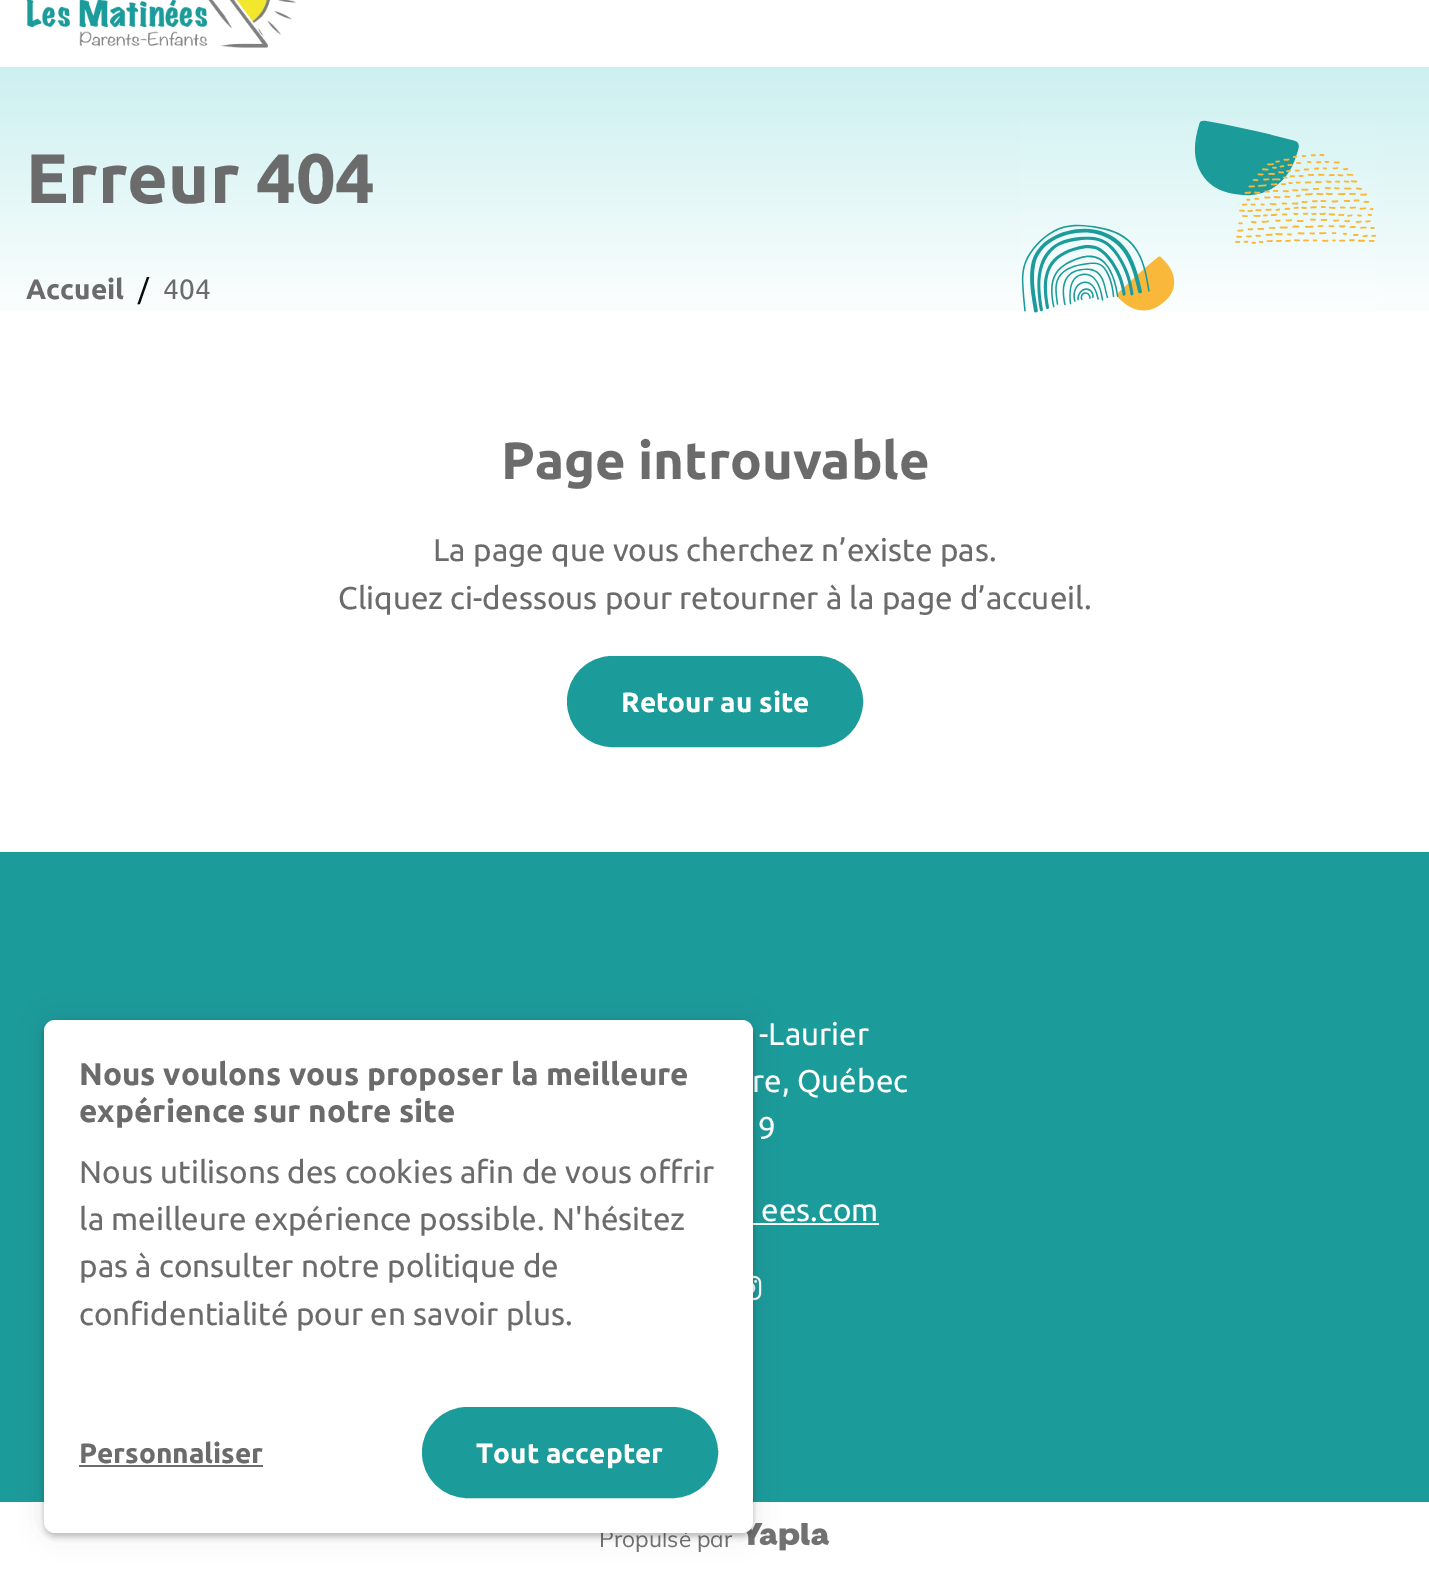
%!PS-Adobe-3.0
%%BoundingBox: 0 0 1429 1576
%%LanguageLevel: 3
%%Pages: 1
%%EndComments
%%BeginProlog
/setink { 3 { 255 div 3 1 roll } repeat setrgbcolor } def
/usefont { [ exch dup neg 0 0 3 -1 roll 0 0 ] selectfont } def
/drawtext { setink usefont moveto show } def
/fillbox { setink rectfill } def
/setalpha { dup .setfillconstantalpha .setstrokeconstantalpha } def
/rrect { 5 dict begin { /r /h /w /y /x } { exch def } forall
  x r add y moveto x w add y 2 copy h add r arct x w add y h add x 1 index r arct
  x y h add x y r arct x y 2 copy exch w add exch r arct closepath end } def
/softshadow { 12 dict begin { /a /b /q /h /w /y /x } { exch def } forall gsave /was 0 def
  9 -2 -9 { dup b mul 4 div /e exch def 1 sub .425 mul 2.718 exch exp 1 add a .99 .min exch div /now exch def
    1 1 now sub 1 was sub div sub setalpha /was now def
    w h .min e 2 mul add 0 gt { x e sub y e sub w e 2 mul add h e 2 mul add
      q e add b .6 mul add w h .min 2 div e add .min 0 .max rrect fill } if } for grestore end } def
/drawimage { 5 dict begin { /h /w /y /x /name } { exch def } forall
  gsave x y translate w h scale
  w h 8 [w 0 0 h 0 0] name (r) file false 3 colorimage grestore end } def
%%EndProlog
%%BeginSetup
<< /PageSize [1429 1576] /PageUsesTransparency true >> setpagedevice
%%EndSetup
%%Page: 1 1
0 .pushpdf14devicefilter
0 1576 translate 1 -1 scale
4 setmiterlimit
0 0 1429 1576 255 255 255 fillbox
(assets/img1.rgb) 26 0 270 48 drawimage
gsave 0 67 moveto 1429 67 lineto 1429 311 lineto 0 311 lineto closepath clip newpath
<< /ShadingType 2 /ColorSpace /DeviceRGB /Coords [715 66 715 324] /Extend [true true] /Function << /FunctionType 2 /Domain [0 1] /C0 [0.8 0.941 0.941] /C1 [1 1 1] /N 1 >> >> shfill grestore
(Erreur 404) 26 203 /Ubuntu-Bold 70 107 107 107 drawtext
(assets/img2.rgb) 1021 120 356 193 drawimage
(Accueil) 26 299 /Ubuntu-Bold 28 107 107 107 drawtext
(/) 138 299 /Ubuntu-Regular 28 10 12 12 drawtext
(404) 163 299 /Ubuntu-Regular 28 107 107 107 drawtext
(Page introuvable) 501 479 /Ubuntu-Bold 52.5 107 107 107 drawtext
(La page que vous cherchez n’existe pas.) 433 561 /Ubuntu-Regular 31.5 107 107 107 drawtext
(Cliquez ci-dessous pour retourner à la page d’accueil.) 338 609 /Ubuntu-Regular 31.5 107 107 107 drawtext
28 155 155 setink
568 657 294 89 44.5 rrect gsave fill grestore
2 setlinewidth
stroke
(Retour au site) 621 712 /Ubuntu-Bold 28 255 255 255 drawtext
0 852 1429 650 28 155 155 fillbox
(-Laurier) 759 1045 /Ubuntu-Regular 31.5 255 255 255 drawtext
(re, Québec) 752 1092 /Ubuntu-Regular 31.5 255 255 255 drawtext
(9) 758 1139 /Ubuntu-Regular 31.5 255 255 255 drawtext
(ees.com) 761 1221 /Ubuntu-Regular 31.5 255 255 255 drawtext
753 1223 126 2 255 255 255 fillbox
(assets/img3.rgb) 753 1275 9 26 drawimage
(Propulsé par) 599 1547 /Muli-Regular 22.75 113 113 113 drawtext
(assets/img4.rgb) 746 1523 84 28 drawimage
0 0 0 setink
44 1020 709 513 11 13 0.1 softshadow
44 1024 709 513 11 2.5 0.2 softshadow
255 255 255 setink
44 1020 709 513 11 rrect fill
(Nous voulons vous proposer la meilleure) 79 1085 /Ubuntu-Bold 31.5 107 107 107 drawtext
(expérience sur notre site) 79 1122 /Ubuntu-Bold 31.5 107 107 107 drawtext
(Nous utilisons des cookies afin de vous offrir) 79 1183 /Ubuntu-Regular 31.5 107 107 107 drawtext
(la meilleure expérience possible. N'hésitez) 79 1230 /Ubuntu-Regular 31.5 107 107 107 drawtext
(pas à consulter notre politique de) 79 1277 /Ubuntu-Regular 31.5 107 107 107 drawtext
(confidentialité pour en savoir plus.) 79 1325 /Ubuntu-Regular 31.5 107 107 107 drawtext
(Personnaliser) 79 1463 /Ubuntu-Bold 28 107 107 107 drawtext
79 1465 184 2 107 107 107 fillbox
28 155 155 setink
423 1408 294 89 44.5 rrect gsave fill grestore
stroke
(Tout accepter) 476 1463 /Ubuntu-Bold 28 255 255 255 drawtext
.poppdf14devicefilter showpage
%%EOF
